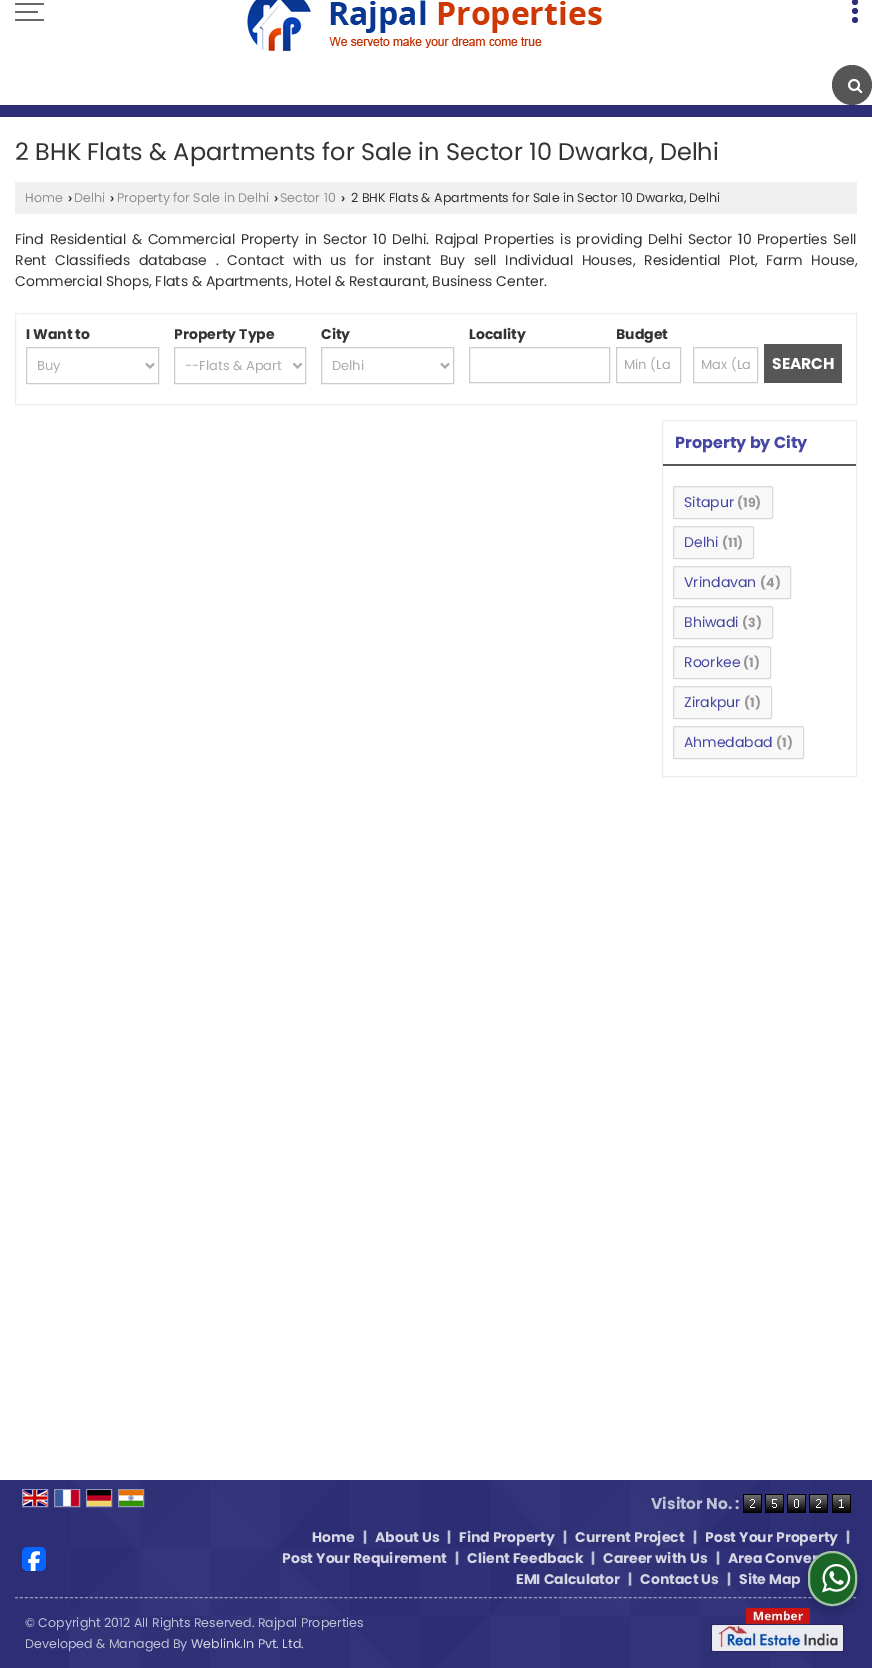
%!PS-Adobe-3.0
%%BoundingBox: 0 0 872 1668
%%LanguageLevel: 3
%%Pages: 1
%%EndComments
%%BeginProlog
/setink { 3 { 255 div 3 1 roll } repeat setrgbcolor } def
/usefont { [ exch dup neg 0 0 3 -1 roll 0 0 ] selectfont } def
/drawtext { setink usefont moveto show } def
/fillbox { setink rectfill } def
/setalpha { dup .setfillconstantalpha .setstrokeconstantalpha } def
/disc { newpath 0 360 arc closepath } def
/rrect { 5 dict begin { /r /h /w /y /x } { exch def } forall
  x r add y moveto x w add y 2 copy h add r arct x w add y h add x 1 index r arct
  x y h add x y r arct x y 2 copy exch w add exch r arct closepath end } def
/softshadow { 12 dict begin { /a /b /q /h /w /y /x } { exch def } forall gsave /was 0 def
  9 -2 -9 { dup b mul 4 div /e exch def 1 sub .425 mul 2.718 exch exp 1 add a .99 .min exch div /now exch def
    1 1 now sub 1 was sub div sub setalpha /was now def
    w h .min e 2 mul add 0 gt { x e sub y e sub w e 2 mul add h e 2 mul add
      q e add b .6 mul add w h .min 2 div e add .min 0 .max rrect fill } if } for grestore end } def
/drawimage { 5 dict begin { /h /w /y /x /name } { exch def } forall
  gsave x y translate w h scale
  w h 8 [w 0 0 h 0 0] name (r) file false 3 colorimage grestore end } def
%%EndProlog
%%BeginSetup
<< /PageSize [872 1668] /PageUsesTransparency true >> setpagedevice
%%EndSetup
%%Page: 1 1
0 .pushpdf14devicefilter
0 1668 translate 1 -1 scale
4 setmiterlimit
0 0 872 1668 255 255 255 fillbox
(assets/img1.rgb) 247 0 355 51 drawimage
45 46 117 setink
855 11 3 disc fill
855 2 3 disc fill
855 20 3 disc fill
87 86 86 setink
852 85 20 disc fill
(assets/img2.rgb) 848 78 15 16 drawimage
0 105 872 12 45 46 117 fillbox
102 102 102 setink
15 3 29 2 1 rrect fill
15 11 23 2 1 rrect fill
15 19 29 2 1 rrect fill
(2 BHK Flats & Apartments for Sale in Sector 10 Dwarka, Delhi) 15 160 /Poppins-Regular 24 51 51 51 drawtext
15 182 842 32 240 240 240 fillbox
(Home) 25 202 /Poppins-Regular 12.6 144 144 144 drawtext
(›) 68 202 /LiberationSans-Bold 12.6 51 51 51 drawtext
(Delhi) 74 202 /Poppins-Regular 12.6 144 144 144 drawtext
(›) 110 202 /LiberationSans-Bold 12.6 51 51 51 drawtext
(Property for Sale in Delhi) 117 202 /Poppins-Regular 12.6 144 144 144 drawtext
(›) 274 202 /LiberationSans-Bold 12.6 51 51 51 drawtext
(Sector 10) 280 202 /Poppins-Regular 12.6 144 144 144 drawtext
(›) 341 202 /LiberationSans-Bold 12.6 51 51 51 drawtext
(2 BHK Flats & Apartments for Sale in Sector 10 Dwarka, Delhi) 351 202 /Poppins-Regular 12.6 51 51 51 drawtext
/Poppins-Regular 14 usefont
15 244 moveto 1.9 0 32 (Find Residential & Commercial Property in Sector 10 Delhi. Rajpal Properties is) widthshow
576 244 moveto 1.9 0 32 (providing Delhi Sector 10 Properties Sell) widthshow
15 265 moveto 4.9 0 32 (Rent Classifieds database . Contact with us for instant Buy sell Individual Houses, Residential Plot, Farm House,) widthshow
(Commercial Shops, Flats & Apartments, Hotel & Restaurant, Business Center.) 15 286 /Poppins-Regular 14 51 51 51 drawtext
237 237 237 setink
15.5 313.5 841 91 rectstroke
(I Want to) 26 339 /Poppins-Bold 14 51 51 51 drawtext
204 204 204 setink
26.5 347.5 132 36 rectstroke
170 170 170 setink
2 setlinewidth
146 363.5 moveto 150 367.5 lineto 154 363.5 lineto stroke
(Buy) 37 370 /Poppins-Regular 13 170 170 170 drawtext
(Property Type) 174 339 /Poppins-Bold 14 51 51 51 drawtext
204 204 204 setink
1 setlinewidth
174.5 347.5 131 36 rectstroke
170 170 170 setink
2 setlinewidth
293.5 363.5 moveto 297.5 367.5 lineto 301.5 363.5 lineto stroke
(--Flats & Apart) 185 370 /Poppins-Regular 13 170 170 170 drawtext
(City) 321 339 /Poppins-Bold 14 51 51 51 drawtext
204 204 204 setink
1 setlinewidth
321.5 347.5 132 36 rectstroke
170 170 170 setink
2 setlinewidth
441 363.5 moveto 445 367.5 lineto 449 363.5 lineto stroke
(Delhi) 332 370 /Poppins-Regular 13 170 170 170 drawtext
(Locality) 469 339 /Poppins-Bold 14 51 51 51 drawtext
204 204 204 setink
1 setlinewidth
469.5 347.5 140 35 rectstroke
(Budget) 616 339 /Poppins-Bold 14 51 51 51 drawtext
204 204 204 setink
616.5 347.5 64 35 rectstroke
(Min \(La) 624 369 /Poppins-Regular 13 170 170 170 drawtext
204 204 204 setink
693.5 347.5 64 35 rectstroke
(Max \(La) 701 369 /Poppins-Regular 13 170 170 170 drawtext
764 344 78 39 87 86 86 fillbox
(SEARCH) 772 369 /Poppins-Bold 15.5 255 255 255 drawtext
237 237 237 setink
662.5 420.5 194 356 rectstroke
663 464 193 2 87 86 86 fillbox
(Property by City) 675 448 /Poppins-Bold 16 70 70 163 drawtext
248 248 248 setink
673.5 486.5 99 32 1.5 rrect gsave fill grestore
216 216 216 setink
stroke
(Sitapur) 684 507 /Poppins-Regular 14 70 70 163 drawtext
(\(19\)) 737 507 /Poppins-Bold 12.6 150 150 150 drawtext
248 248 248 setink
673.5 526.5 80 32 1.5 rrect gsave fill grestore
216 216 216 setink
stroke
(Delhi) 684 547 /Poppins-Regular 14 70 70 163 drawtext
(\(11\)) 722 547 /Poppins-Bold 12.6 150 150 150 drawtext
248 248 248 setink
673.5 566.5 117 32 1.5 rrect gsave fill grestore
216 216 216 setink
stroke
(Vrindavan) 684 587 /Poppins-Regular 14 70 70 163 drawtext
(\(4\)) 760 587 /Poppins-Bold 12.6 150 150 150 drawtext
248 248 248 setink
673.5 606.5 99 32 1.5 rrect gsave fill grestore
216 216 216 setink
stroke
(Bhiwadi) 684 627 /Poppins-Regular 14 70 70 163 drawtext
(\(3\)) 742 627 /Poppins-Bold 12.6 150 150 150 drawtext
248 248 248 setink
673.5 646.5 97 32 1.5 rrect gsave fill grestore
216 216 216 setink
stroke
(Roorkee) 684 667 /Poppins-Regular 14 70 70 163 drawtext
(\(1\)) 743 667 /Poppins-Bold 12.6 150 150 150 drawtext
248 248 248 setink
673.5 686.5 98 32 1.5 rrect gsave fill grestore
216 216 216 setink
stroke
(Zirakpur) 684 707 /Poppins-Regular 14 70 70 163 drawtext
(\(1\)) 744 707 /Poppins-Bold 12.6 150 150 150 drawtext
248 248 248 setink
673.5 726.5 130 32 1.5 rrect gsave fill grestore
216 216 216 setink
stroke
(Ahmedabad) 684 747 /Poppins-Regular 14 70 70 163 drawtext
(\(1\)) 776 747 /Poppins-Bold 12.6 150 150 150 drawtext
0 1480 872 188 45 46 117 fillbox
(assets/img3.rgb) 68 1480 745 188 drawimage
150 151 186 setink
22.5 1489.5 25 17 rectstroke
0.5 setalpha
255 255 255 setink
54.5 1489.5 25 17 rectstroke
1 setalpha
152 153 187 setink
86.5 1489.5 25 17 rectstroke
0.5 setalpha
255 255 255 setink
118.5 1489.5 25 17 rectstroke
1 setalpha
(assets/img4.rgb) 23 1490 24 16 drawimage
(assets/img5.rgb) 55 1490 24 16 drawimage
(assets/img6.rgb) 87 1490 24 16 drawimage
(assets/img7.rgb) 119 1490 24 16 drawimage
(Visitor No. :) 651 1509 /Poppins-Bold 15.5 193 193 214 drawtext
(assets/img8.rgb) 743 1494 19 19 drawimage
(assets/img9.rgb) 765 1494 19 19 drawimage
(assets/img10.rgb) 787 1494 19 19 drawimage
(assets/img8.rgb) 809 1494 19 19 drawimage
(assets/img11.rgb) 832 1494 19 19 drawimage
(assets/img12.rgb) 22 1547 24 24 drawimage
(Home) 312 1542 /Poppins-Bold 14 213 213 227 drawtext
(|) 363 1542 /Poppins-Bold 14 193 193 214 drawtext
(About Us) 375 1542 /Poppins-Bold 14 213 213 227 drawtext
(|) 447 1542 /Poppins-Bold 14 193 193 214 drawtext
(Find Property) 459 1542 /Poppins-Bold 14 213 213 227 drawtext
(|) 563 1542 /Poppins-Bold 14 193 193 214 drawtext
(Current Project) 575 1542 /Poppins-Bold 14 213 213 227 drawtext
(|) 693 1542 /Poppins-Bold 14 193 193 214 drawtext
(Post Your Property) 705 1542 /Poppins-Bold 14 213 213 227 drawtext
(|) 846 1542 /Poppins-Bold 14 193 193 214 drawtext
(Post Your Requirement) 282 1563 /Poppins-Bold 14 213 213 227 drawtext
(|) 455 1563 /Poppins-Bold 14 193 193 214 drawtext
(Client Feedback) 467 1563 /Poppins-Bold 14 213 213 227 drawtext
(|) 591 1563 /Poppins-Bold 14 193 193 214 drawtext
(Career with Us) 603 1563 /Poppins-Bold 14 213 213 227 drawtext
(|) 716 1563 /Poppins-Bold 14 193 193 214 drawtext
(Area Conver) 728 1563 /Poppins-Bold 14 213 213 227 drawtext
(EMI Calculator) 516 1584 /Poppins-Bold 14 213 213 227 drawtext
(|) 628 1584 /Poppins-Bold 14 193 193 214 drawtext
(Contact Us) 640 1584 /Poppins-Bold 14 213 213 227 drawtext
(|) 727 1584 /Poppins-Bold 14 193 193 214 drawtext
(Site Map) 739 1584 /Poppins-Bold 14 213 213 227 drawtext
0.5 setalpha
255 255 255 setink
[3 1.99] 0 setdash
15 1597.5 moveto 857 1597.5 lineto stroke
1 setalpha
(© Copyright 2012 All Rights Reserved. Rajpal Properties) 25 1627 /Poppins-Regular 12.6 193 193 214 drawtext
(Developed & Managed By) 25 1648 /Poppins-Regular 12.6 193 193 214 drawtext
(Weblink.In Pvt. Ltd.) 191 1648 /Poppins-Regular 12.6 213 213 227 drawtext
(assets/img13.rgb) 711 1608 133 44 drawimage
0 0 0 setink
806 1555 53 59 26.5 4 0.14 softshadow
25 102 38 setink
808 1551 49 55 24.5 rrect fill
0.6 setalpha
255 255 255 setink
2 setlinewidth
[] 0 setdash
809 1552 47 53 23.5 rrect stroke
1 setalpha
(assets/img14.rgb) 822 1564 29 29 drawimage
.poppdf14devicefilter showpage
%%EOF
